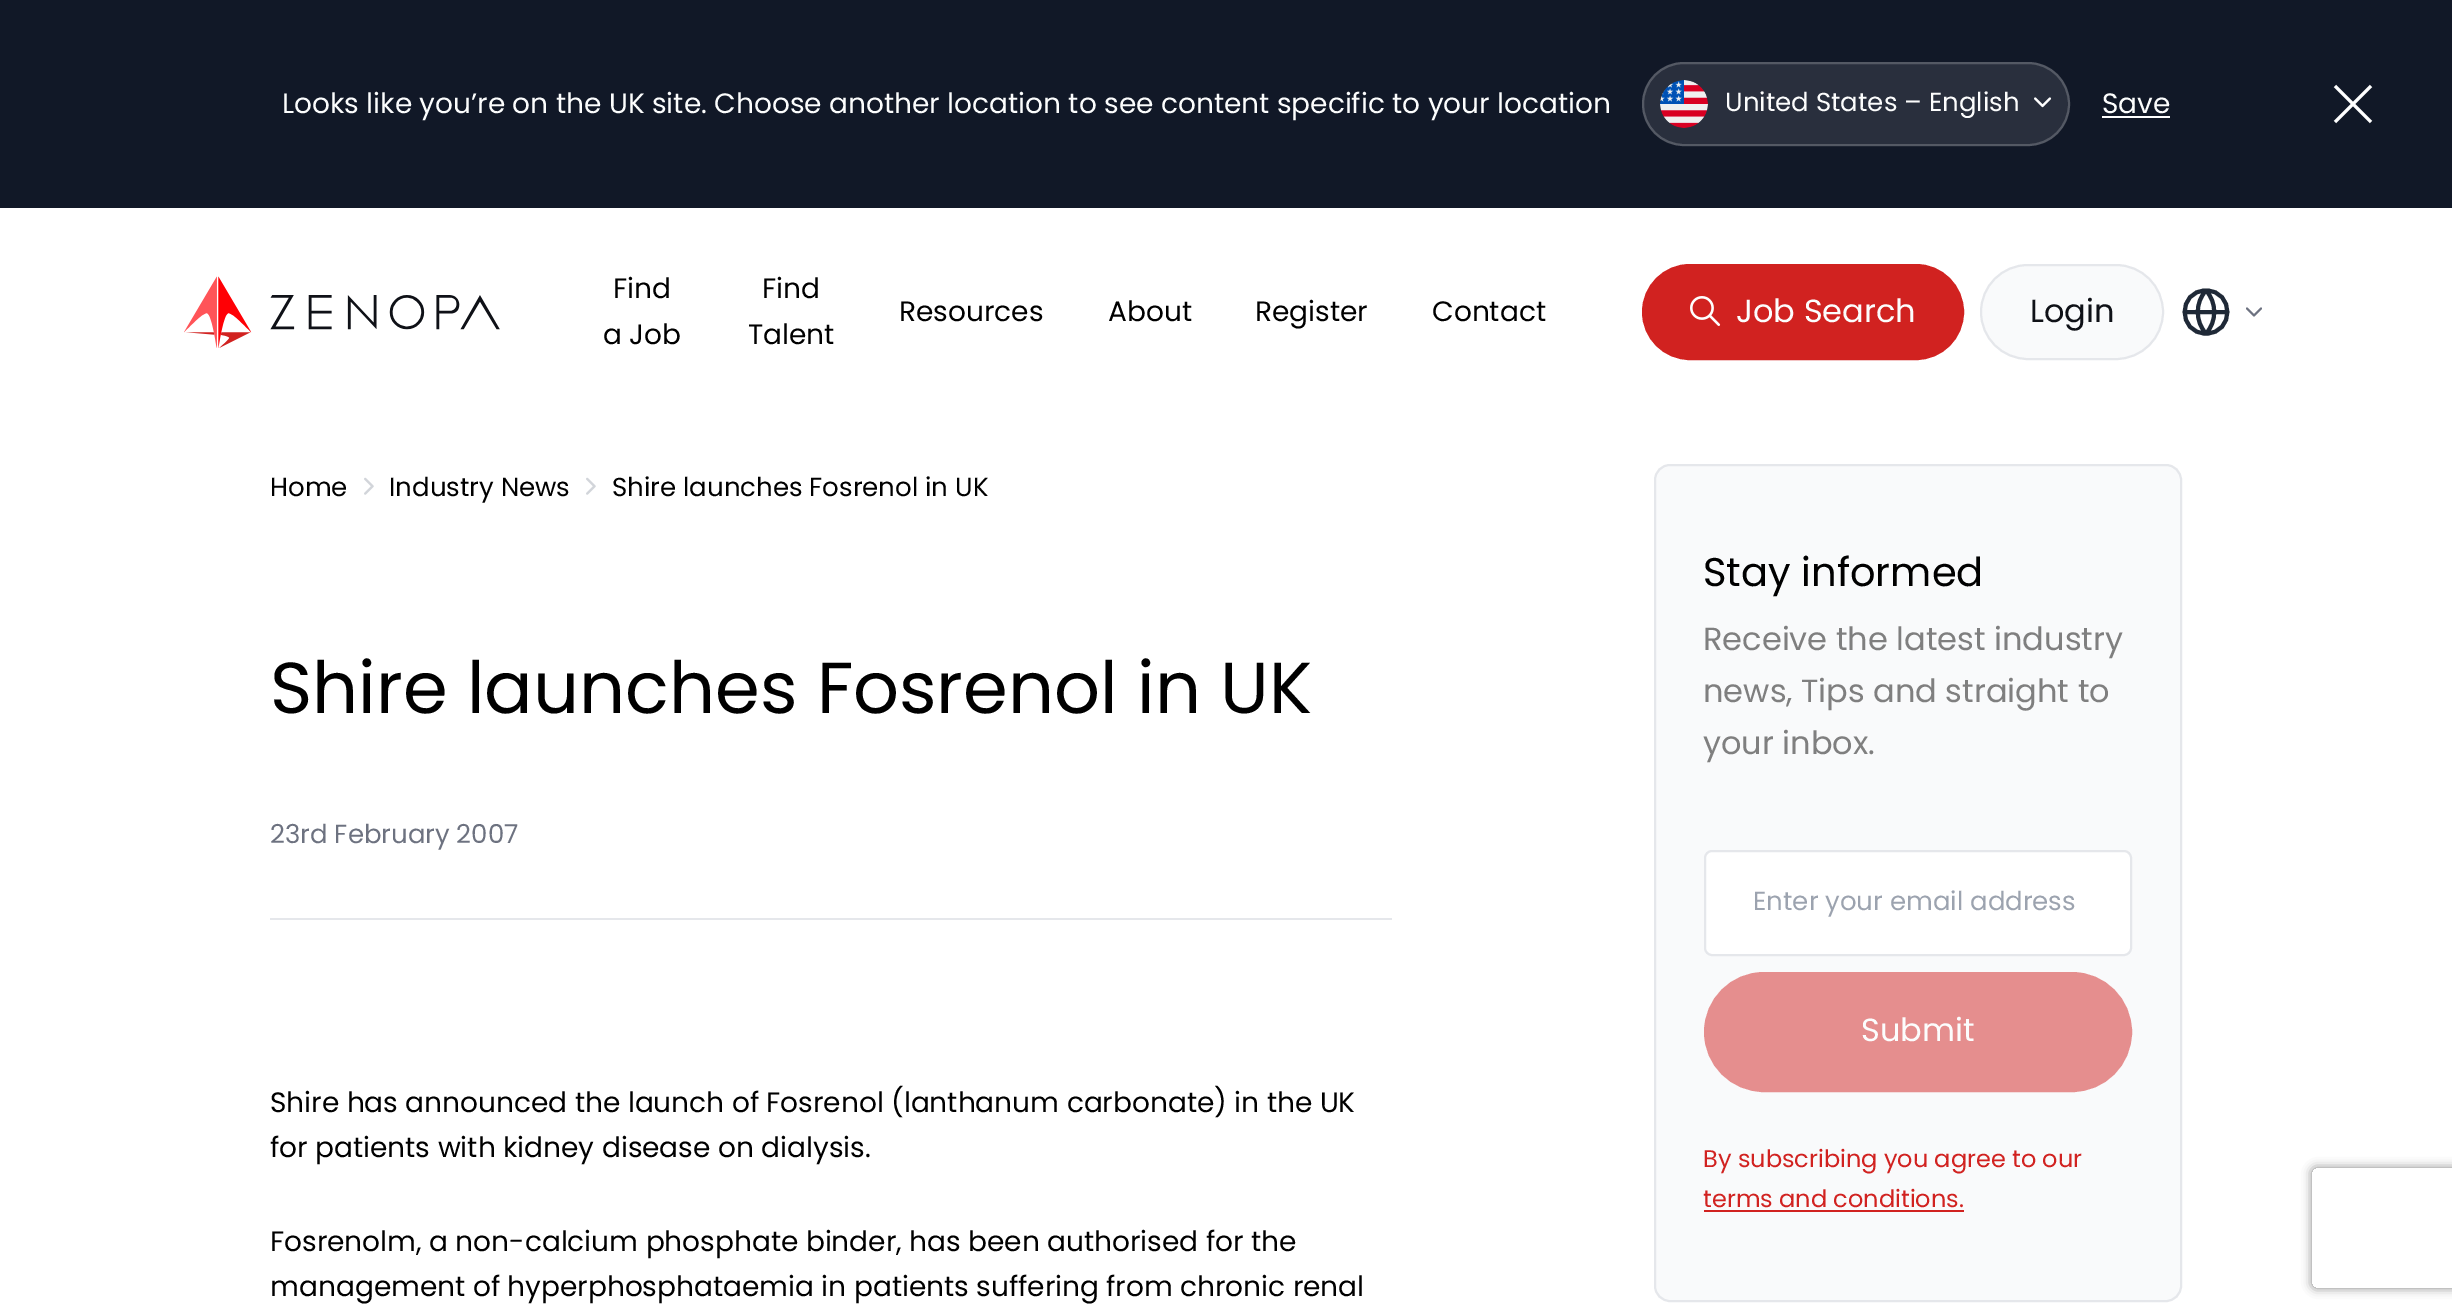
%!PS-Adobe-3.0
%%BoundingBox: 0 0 2452 1316
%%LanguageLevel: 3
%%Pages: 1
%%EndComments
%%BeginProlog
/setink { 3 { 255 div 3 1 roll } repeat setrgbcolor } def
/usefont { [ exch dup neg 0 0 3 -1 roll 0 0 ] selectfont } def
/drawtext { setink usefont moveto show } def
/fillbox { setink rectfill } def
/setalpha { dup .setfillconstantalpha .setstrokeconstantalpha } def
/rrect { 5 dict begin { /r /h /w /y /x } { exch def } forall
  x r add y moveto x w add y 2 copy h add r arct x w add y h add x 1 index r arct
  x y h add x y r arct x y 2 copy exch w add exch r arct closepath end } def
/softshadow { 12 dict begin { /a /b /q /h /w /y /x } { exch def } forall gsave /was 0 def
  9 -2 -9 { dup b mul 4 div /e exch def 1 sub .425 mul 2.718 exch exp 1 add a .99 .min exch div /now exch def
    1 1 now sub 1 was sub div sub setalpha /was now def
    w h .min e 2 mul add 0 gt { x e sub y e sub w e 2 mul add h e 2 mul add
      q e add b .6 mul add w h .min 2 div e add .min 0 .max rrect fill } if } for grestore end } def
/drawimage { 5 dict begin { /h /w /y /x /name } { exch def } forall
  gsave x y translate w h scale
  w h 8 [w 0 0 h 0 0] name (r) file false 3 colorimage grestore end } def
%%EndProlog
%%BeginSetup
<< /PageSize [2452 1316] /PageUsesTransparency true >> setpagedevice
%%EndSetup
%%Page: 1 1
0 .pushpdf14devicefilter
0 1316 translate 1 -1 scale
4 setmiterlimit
0 0 2452 1316 255 255 255 fillbox
0 0 2452 208 17 24 39 fillbox
(Looks like you’re on the UK site. Choose another location to see content specific to your location) 282 113 /Poppins-Regular 28 252 253 253 drawtext
41 47 61 setink
1642 62 428 84 42 rrect fill
0.2 setalpha
255 255 255 setink
2 setlinewidth
1643 63 426 82 41 rrect stroke
1 setalpha
(assets/img1.rgb) 1660 80 48 48 drawimage
(United States – English) 1725 111 /Poppins-Regular 26 252 253 253 drawtext
(assets/img2.rgb) 2034 97 18 11 drawimage
(Save) 2102 113 /Poppins-Regular 28 252 253 253 drawtext
2102 116 68 2 255 255 255 fillbox
3 setlinewidth
2335 86 moveto 2371 122 lineto 2371 86 moveto 2335 122 lineto stroke
(assets/img3.rgb) 184 276 316 72 drawimage
(Find) 613 298 /Poppins-Regular 28 0 0 0 drawtext
(a Job) 603 344 /Poppins-Regular 28 0 0 0 drawtext
(Find) 762 298 /Poppins-Regular 28 0 0 0 drawtext
(Talent) 748 344 /Poppins-Regular 28 0 0 0 drawtext
(Resources) 899 321 /Poppins-Regular 28 0 0 0 drawtext
(About) 1108 321 /Poppins-Regular 28 0 0 0 drawtext
(Register) 1255 321 /Poppins-Regular 28 0 0 0 drawtext
(Contact) 1432 321 /Poppins-Regular 28 0 0 0 drawtext
209 34 32 setink
1644 266 318 92 46 rrect gsave fill grestore
4 setlinewidth
stroke
(assets/img4.rgb) 1690 296 31 30 drawimage
(Job Search) 1736 322 /Poppins-Regular 32 252 253 253 drawtext
249 250 251 setink
1981 265 182 94 47 rrect gsave fill grestore
229 231 235 setink
2 setlinewidth
stroke
(Login) 2030 322 /Poppins-Regular 32 15 17 23 drawtext
31 41 55 setink
4 setlinewidth
1 setlinecap
1 setlinejoin
2206 333.5 moveto 2234.5 333.5 2234.5 290.5 2206 290.5 curveto 2177.5 290.5 2177.5 333.5 2206 333.5 curveto closepath 2184.5 312 moveto 2227.5 312 lineto 2206 290.5 moveto 2217 302.5 2217 321.5 2206 333.5 curveto 2195 321.5 2195 302.5 2206 290.5 curveto closepath stroke
109 114 128 setink
2 setlinewidth
2247 308.5 moveto 2254 315.5 lineto 2261 308.5 lineto stroke
270 918 1122 2 229 231 235 fillbox
(Home) 270 496 /Poppins-Regular 26 0 0 0 drawtext
(assets/img5.rgb) 364 477 10 18 drawimage
(Industry News) 389 496 /Poppins-Regular 26 0 0 0 drawtext
(assets/img5.rgb) 586 477 10 18 drawimage
(Shire launches Fosrenol in UK) 612 496 /Poppins-Regular 26 0 0 0 drawtext
(Shire launches Fosrenol in UK) 270 713 /Poppins-Regular 72 0 0 0 drawtext
(23rd February 2007) 270 843 /Poppins-Regular 26 109 114 128 drawtext
(Shire has announced the launch of Fosrenol \(lanthanum carbonate\) in the UK) 270 1112 /Poppins-Regular 28 0 0 0 drawtext
(for patients with kidney disease on dialysis.) 270 1157 /Poppins-Regular 28 0 0 0 drawtext
(Fosrenolm, a non-calcium phosphate binder, has been authorised for the) 270 1251 /Poppins-Regular 28 0 0 0 drawtext
(management of hyperphosphataemia in patients suffering from chronic renal) 270 1296 /Poppins-Regular 28 0 0 0 drawtext
249 250 251 setink
1655 465 526 836 15 rrect gsave fill grestore
229 231 235 setink
0 setlinecap
0 setlinejoin
stroke
(Stay informed) 1703 586 /Poppins-Regular 40 0 0 0 drawtext
(Receive the latest industry) 1703 650 /Poppins-Regular 32 127 127 127 drawtext
(news, Tips and straight to) 1703 702 /Poppins-Regular 32 127 127 127 drawtext
(your inbox.) 1703 754 /Poppins-Regular 32 127 127 127 drawtext
255 255 255 setink
1705 851 426 104 7 rrect gsave fill grestore
229 231 235 setink
stroke
(Enter your email address) 1753 910 /Poppins-Regular 26 156 163 175 drawtext
229 142 142 setink
1705 973 426 118 59 rrect gsave fill grestore
stroke
(Submit) 1861 1041 /Poppins-Regular 32 252 253 253 drawtext
(By subscribing you agree to our) 1703 1167 /Poppins-Regular 24 209 34 32 drawtext
(terms and conditions.) 1703 1207 /Poppins-Regular 24 209 34 32 drawtext
1704 1210 260 2 209 34 32 fillbox
gsave
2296 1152 moveto 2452 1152 lineto 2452 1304 lineto 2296 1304 lineto closepath 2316 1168 moveto 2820 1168 lineto 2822 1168 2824 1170 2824 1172 curveto 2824 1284 lineto 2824 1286 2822 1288 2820 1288 curveto 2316 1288 lineto 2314 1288 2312 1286 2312 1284 curveto 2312 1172 lineto 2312 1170 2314 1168 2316 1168 curveto closepath eoclip newpath
128 128 128 setink
2312 1168 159 120 4 5 1 softshadow
grestore
.poppdf14devicefilter showpage
%%EOF
